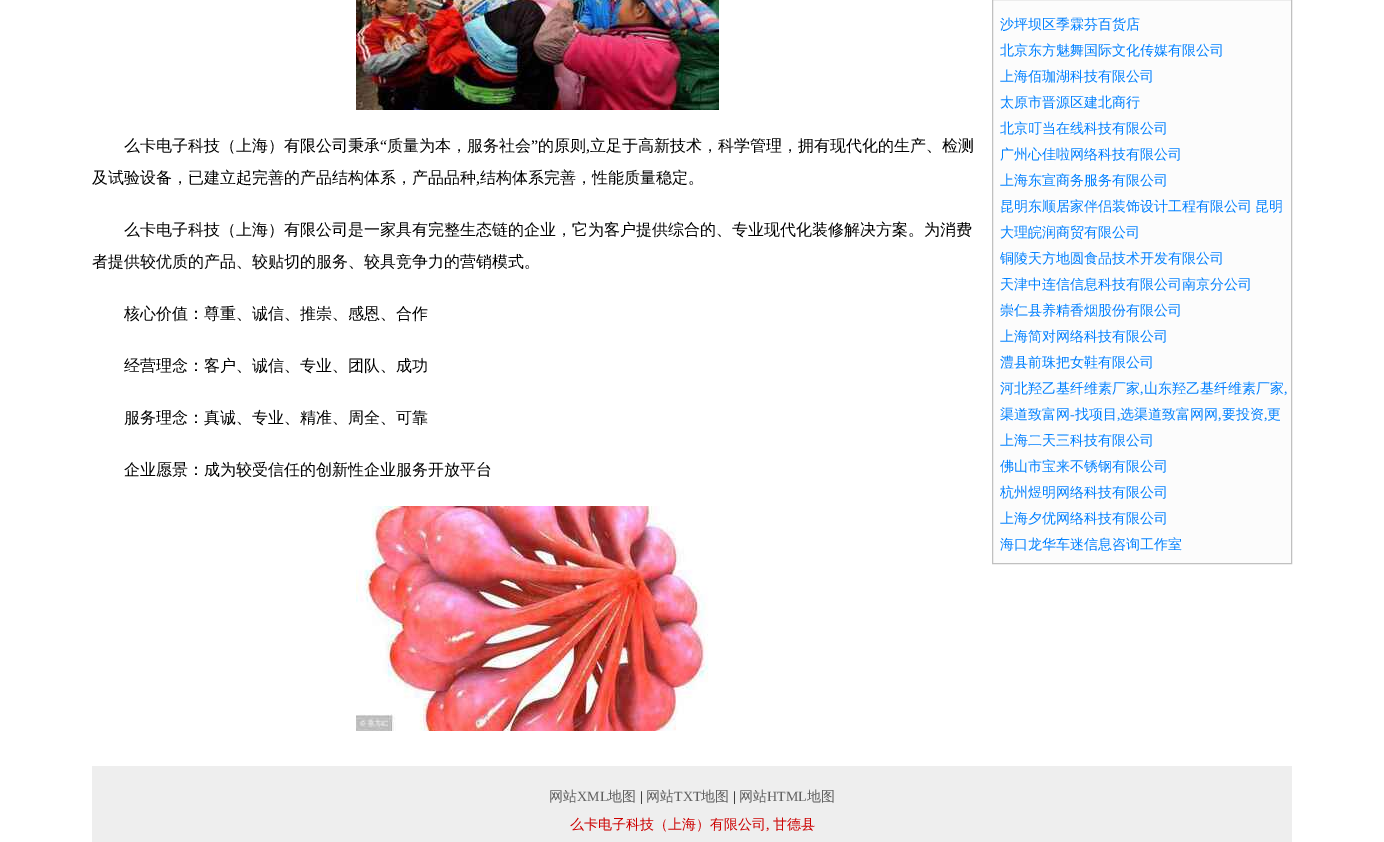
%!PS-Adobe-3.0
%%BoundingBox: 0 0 1384 842
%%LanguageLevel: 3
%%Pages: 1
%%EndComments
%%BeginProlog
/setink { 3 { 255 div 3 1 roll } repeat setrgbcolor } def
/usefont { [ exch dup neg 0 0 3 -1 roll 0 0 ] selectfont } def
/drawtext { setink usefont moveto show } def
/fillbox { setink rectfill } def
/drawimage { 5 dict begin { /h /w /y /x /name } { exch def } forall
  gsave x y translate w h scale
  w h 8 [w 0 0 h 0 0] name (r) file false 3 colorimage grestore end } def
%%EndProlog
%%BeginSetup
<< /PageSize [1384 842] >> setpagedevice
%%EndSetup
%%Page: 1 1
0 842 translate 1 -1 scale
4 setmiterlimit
0 0 1384 842 255 255 255 fillbox
(assets/img1.rgb) 356 0 363 110 drawimage
(么卡电子科技（上海）有限公司秉承) 124 151 /WenQuanYiZenHei-Medium 16 0 0 0 drawtext
(“) 380 151 /LiberationSerif-Regular 16 0 0 0 drawtext
(质量为本，服务社会) 387 151 /WenQuanYiZenHei-Medium 16 0 0 0 drawtext
(”) 531 151 /LiberationSerif-Regular 16 0 0 0 drawtext
(的原则) 538 151 /WenQuanYiZenHei-Medium 16 0 0 0 drawtext
(立足于高新技术，科学管理，拥有现代化的生产、检测) 590 151 /WenQuanYiZenHei-Medium 16 0 0 0 drawtext
(,) 586 151 /LiberationSerif-Regular 16 0 0 0 drawtext
(及试验设备，已建立起完善的产品结构体系，产品品种) 92 183 /WenQuanYiZenHei-Medium 16 0 0 0 drawtext
(,) 476 183 /LiberationSerif-Regular 16 0 0 0 drawtext
(结构体系完善，性能质量稳定。) 480 183 /WenQuanYiZenHei-Medium 16 0 0 0 drawtext
(么卡电子科技（上海）有限公司是一家具有完整生态链的企业，它为客户提供综合的、专业现代化装修解决方案。为消费) 124 235 /WenQuanYiZenHei-Medium 16 0 0 0 drawtext
(者提供较优质的产品、较贴切的服务、较具竞争力的营销模式。) 92 267 /WenQuanYiZenHei-Medium 16 0 0 0 drawtext
(核心价值：尊重、诚信、推崇、感恩、合作) 124 319 /WenQuanYiZenHei-Medium 16 0 0 0 drawtext
(经营理念：客户、诚信、专业、团队、成功) 124 371 /WenQuanYiZenHei-Medium 16 0 0 0 drawtext
(服务理念：真诚、专业、精准、周全、可靠) 124 423 /WenQuanYiZenHei-Medium 16 0 0 0 drawtext
(企业愿景：成为较受信任的创新性企业服务开放平台) 124 475 /WenQuanYiZenHei-Medium 16 0 0 0 drawtext
(assets/img2.rgb) 356 506 353 225 drawimage
252 252 252 setink
992.5 -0.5 moveto 1291.5 -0.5 lineto 1291.5 563.5 lineto 992.5 563.5 lineto closepath gsave fill grestore
192 192 192 setink
stroke
(沙坪坝区季霖芬百货店) 1000 29 /WenQuanYiZenHei-Medium 14 0 128 255 drawtext
(北京东方魅舞国际文化传媒有限公司) 1000 55 /WenQuanYiZenHei-Medium 14 0 128 255 drawtext
(上海佰珈湖科技有限公司) 1000 81 /WenQuanYiZenHei-Medium 14 0 128 255 drawtext
(太原市晋源区建北商行) 1000 107 /WenQuanYiZenHei-Medium 14 0 128 255 drawtext
(北京叮当在线科技有限公司) 1000 133 /WenQuanYiZenHei-Medium 14 0 128 255 drawtext
(广州心佳啦网络科技有限公司) 1000 159 /WenQuanYiZenHei-Medium 14 0 128 255 drawtext
(上海东宣商务服务有限公司) 1000 185 /WenQuanYiZenHei-Medium 14 0 128 255 drawtext
1000 211 moveto -1 0 32 (昆明东顺居家伴侣装饰设计工程有限公司 昆明) widthshow
(大理皖润商贸有限公司) 1000 237 /WenQuanYiZenHei-Medium 14 0 128 255 drawtext
(铜陵天方地圆食品技术开发有限公司) 1000 263 /WenQuanYiZenHei-Medium 14 0 128 255 drawtext
(天津中连信信息科技有限公司南京分公司) 1000 289 /WenQuanYiZenHei-Medium 14 0 128 255 drawtext
(崇仁县养精香烟股份有限公司) 1000 315 /WenQuanYiZenHei-Medium 14 0 128 255 drawtext
(上海简对网络科技有限公司) 1000 341 /WenQuanYiZenHei-Medium 14 0 128 255 drawtext
(澧县前珠把女鞋有限公司) 1000 367 /WenQuanYiZenHei-Medium 14 0 128 255 drawtext
(河北羟乙基纤维素厂家) 1000 393 /WenQuanYiZenHei-Medium 14 0 128 255 drawtext
(,) 1140 393 /LiberationSerif-Regular 14 0 128 255 drawtext
(山东羟乙基纤维素厂家) 1144 393 /WenQuanYiZenHei-Medium 14 0 128 255 drawtext
(,) 1284 393 /LiberationSerif-Regular 14 0 128 255 drawtext
(渠道致富网) 1000 419 /WenQuanYiZenHei-Medium 14 0 128 255 drawtext
(-) 1070 419 /LiberationSerif-Regular 14 0 128 255 drawtext
(找项目) 1075 419 /WenQuanYiZenHei-Medium 14 0 128 255 drawtext
(选渠道致富网网) 1120 419 /WenQuanYiZenHei-Medium 14 0 128 255 drawtext
(要投资) 1222 419 /WenQuanYiZenHei-Medium 14 0 128 255 drawtext
(更) 1267 419 /WenQuanYiZenHei-Medium 14 0 128 255 drawtext
(,) 1117 419 /LiberationSerif-Regular 14 0 128 255 drawtext
(,) 1218 419 /LiberationSerif-Regular 14 0 128 255 drawtext
(,) 1264 419 /LiberationSerif-Regular 14 0 128 255 drawtext
(上海二天三科技有限公司) 1000 445 /WenQuanYiZenHei-Medium 14 0 128 255 drawtext
(佛山市宝来不锈钢有限公司) 1000 471 /WenQuanYiZenHei-Medium 14 0 128 255 drawtext
(杭州煜明网络科技有限公司) 1000 497 /WenQuanYiZenHei-Medium 14 0 128 255 drawtext
(上海夕优网络科技有限公司) 1000 523 /WenQuanYiZenHei-Medium 14 0 128 255 drawtext
(海口龙华车迷信息咨询工作室) 1000 549 /WenQuanYiZenHei-Medium 14 0 128 255 drawtext
92 766 1200 76 238 238 238 fillbox
(网站) 549 801 /WenQuanYiZenHei-Medium 14 96 96 96 drawtext
(XML) 577 801 /LiberationSerif-Regular 14 96 96 96 drawtext
(地图) 608 801 /WenQuanYiZenHei-Medium 14 96 96 96 drawtext
(|) 640 801 /LiberationSerif-Regular 14 0 0 0 drawtext
(网站) 646 801 /WenQuanYiZenHei-Medium 14 96 96 96 drawtext
(TXT) 674 801 /LiberationSerif-Regular 14 96 96 96 drawtext
(地图) 701 801 /WenQuanYiZenHei-Medium 14 96 96 96 drawtext
(|) 733 801 /LiberationSerif-Regular 14 0 0 0 drawtext
(网站) 739 801 /WenQuanYiZenHei-Medium 14 96 96 96 drawtext
(HTML) 767 801 /LiberationSerif-Regular 14 96 96 96 drawtext
(地图) 807 801 /WenQuanYiZenHei-Medium 14 96 96 96 drawtext
(么卡电子科技（上海）有限公司) 570 829 /WenQuanYiZenHei-Medium 14 204 0 0 drawtext
(,) 766 829 /LiberationSerif-Regular 14 204 0 0 drawtext
(甘德县) 773 829 /WenQuanYiZenHei-Medium 14 204 0 0 drawtext
showpage
%%EOF
